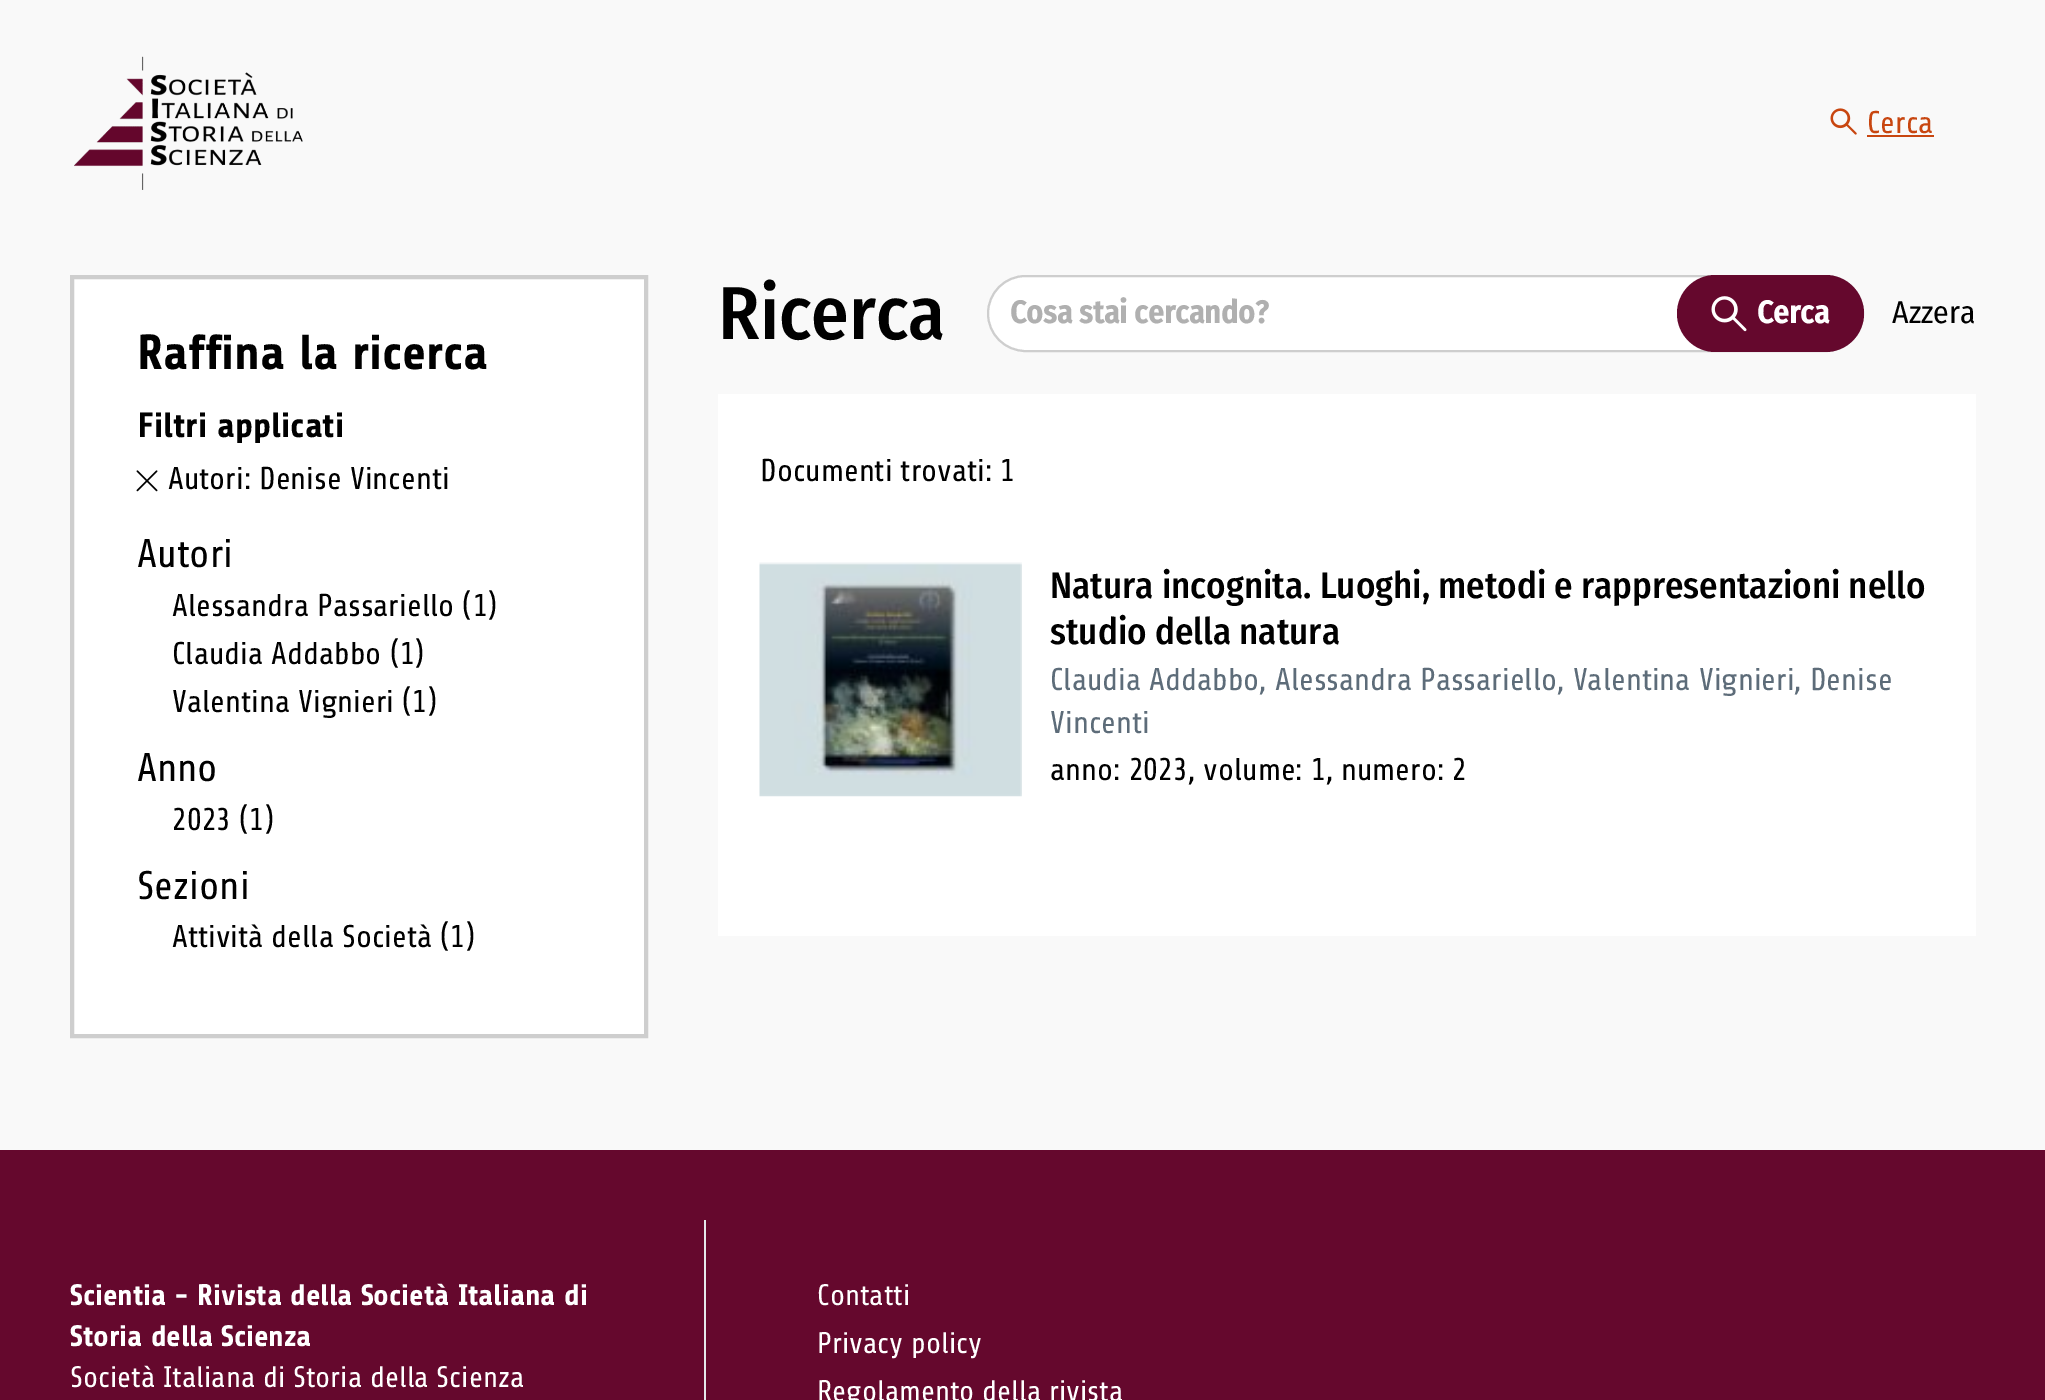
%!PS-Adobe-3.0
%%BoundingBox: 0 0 2045 1400
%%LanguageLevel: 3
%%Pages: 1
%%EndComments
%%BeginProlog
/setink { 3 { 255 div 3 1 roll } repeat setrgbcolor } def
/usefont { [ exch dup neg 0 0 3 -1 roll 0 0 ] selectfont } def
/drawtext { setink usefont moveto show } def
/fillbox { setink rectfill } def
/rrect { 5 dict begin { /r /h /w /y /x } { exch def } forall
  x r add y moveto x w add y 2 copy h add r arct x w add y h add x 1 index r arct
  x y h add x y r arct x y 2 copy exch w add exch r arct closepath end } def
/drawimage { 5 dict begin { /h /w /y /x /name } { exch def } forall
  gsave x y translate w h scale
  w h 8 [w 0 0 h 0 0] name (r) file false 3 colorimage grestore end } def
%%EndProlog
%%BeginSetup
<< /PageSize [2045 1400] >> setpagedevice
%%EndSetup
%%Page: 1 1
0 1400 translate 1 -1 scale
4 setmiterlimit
0 0 2045 1400 249 249 249 fillbox
(assets/img1.rgb) 74 56 229 134 drawimage
(assets/img2.rgb) 1830 108 27 27 drawimage
(Cerca) 1867 133 /Share-Regular 31.5 200 70 16 drawtext
1867 135 67 2 200 70 16 fillbox
255 255 255 setink
72 277 moveto 646 277 lineto 646 1036 lineto 72 1036 lineto closepath gsave fill grestore
206 206 206 setink
4 setlinewidth
stroke
(Raffina la ricerca) 137 369 /Share-Bold 49 0 0 0 drawtext
(Filtri applicati) 137 437 /Share-Bold 35 0 0 0 drawtext
(assets/img3.rgb) 136 470 22 22 drawimage
(Autori: Denise Vincenti) 168 489 /Share-Regular 31.5 0 0 0 drawtext
(Autori) 137 567 /Share-Regular 40 0 0 0 drawtext
(Alessandra Passariello \(1\)) 172 616 /Share-Regular 31.5 0 0 0 drawtext
(Claudia Addabbo \(1\)) 172 664 /Share-Regular 31.5 0 0 0 drawtext
(Valentina Vignieri \(1\)) 172 712 /Share-Regular 31.5 0 0 0 drawtext
(Anno) 137 781 /Share-Regular 40 0 0 0 drawtext
(2023 \(1\)) 172 830 /Share-Regular 31.5 0 0 0 drawtext
(Sezioni) 137 899 /Share-Regular 40 0 0 0 drawtext
(Attività della Società \(1\)) 172 947 /Share-Regular 31.5 0 0 0 drawtext
(Ricerca) 718 339 /FiraSansCondensed-Medium 75 0 0 0 drawtext
255 255 255 setink
988 276 875 75 37.5 rrect gsave fill grestore
206 206 206 setink
2 setlinewidth
stroke
(Cosa stai cercando?) 1010 323 /FiraSansCondensed-Bold 31.5 176 176 176 drawtext
101 8 45 setink
1677 275 187 77 38.5 rrect fill
(assets/img4.rgb) 1711 296 36 36 drawimage
(Cerca) 1757 323 /FiraSansCondensed-Bold 31.5 255 255 255 drawtext
(Azzera) 1892 323 /FiraSansCondensed-Regular 31.5 0 0 0 drawtext
718 394 1258 542 255 255 255 fillbox
(Documenti trovati: 1) 760 481 /Share-Regular 31.5 0 0 0 drawtext
(assets/img5.rgb) 759 562 263 235 drawimage
(Natura incognita. Luoghi, metodi e rappresentazioni nello) 1050 598 /FiraSansCondensed-Medium 36.75 0 0 0 drawtext
(studio della natura) 1050 644 /FiraSansCondensed-Medium 36.75 0 0 0 drawtext
(Claudia Addabbo, Alessandra Passariello, Valentina Vignieri, Denise) 1050 690 /Share-Regular 31.5 93 108 121 drawtext
(Vincenti) 1050 733 /Share-Regular 31.5 93 108 121 drawtext
(anno: 2023, volume: 1, numero: 2) 1050 780 /Share-Regular 31.5 0 0 0 drawtext
0 1150 2045 250 101 8 45 fillbox
704 1220 2 180 229 231 235 fillbox
(Scientia - Rivista della Società Italiana di) 70 1305 /Share-Bold 29.75 255 255 255 drawtext
(Storia della Scienza) 70 1346 /Share-Bold 29.75 255 255 255 drawtext
(Società Italiana di Storia della Scienza) 70 1387 /Share-Regular 29.75 255 255 255 drawtext
(Contatti) 817 1305 /Share-Regular 29.75 255 255 255 drawtext
(Privacy policy) 817 1353 /Share-Regular 29.75 255 255 255 drawtext
(Regolamento della rivista) 817 1401 /Share-Regular 29.75 255 255 255 drawtext
showpage
%%EOF
